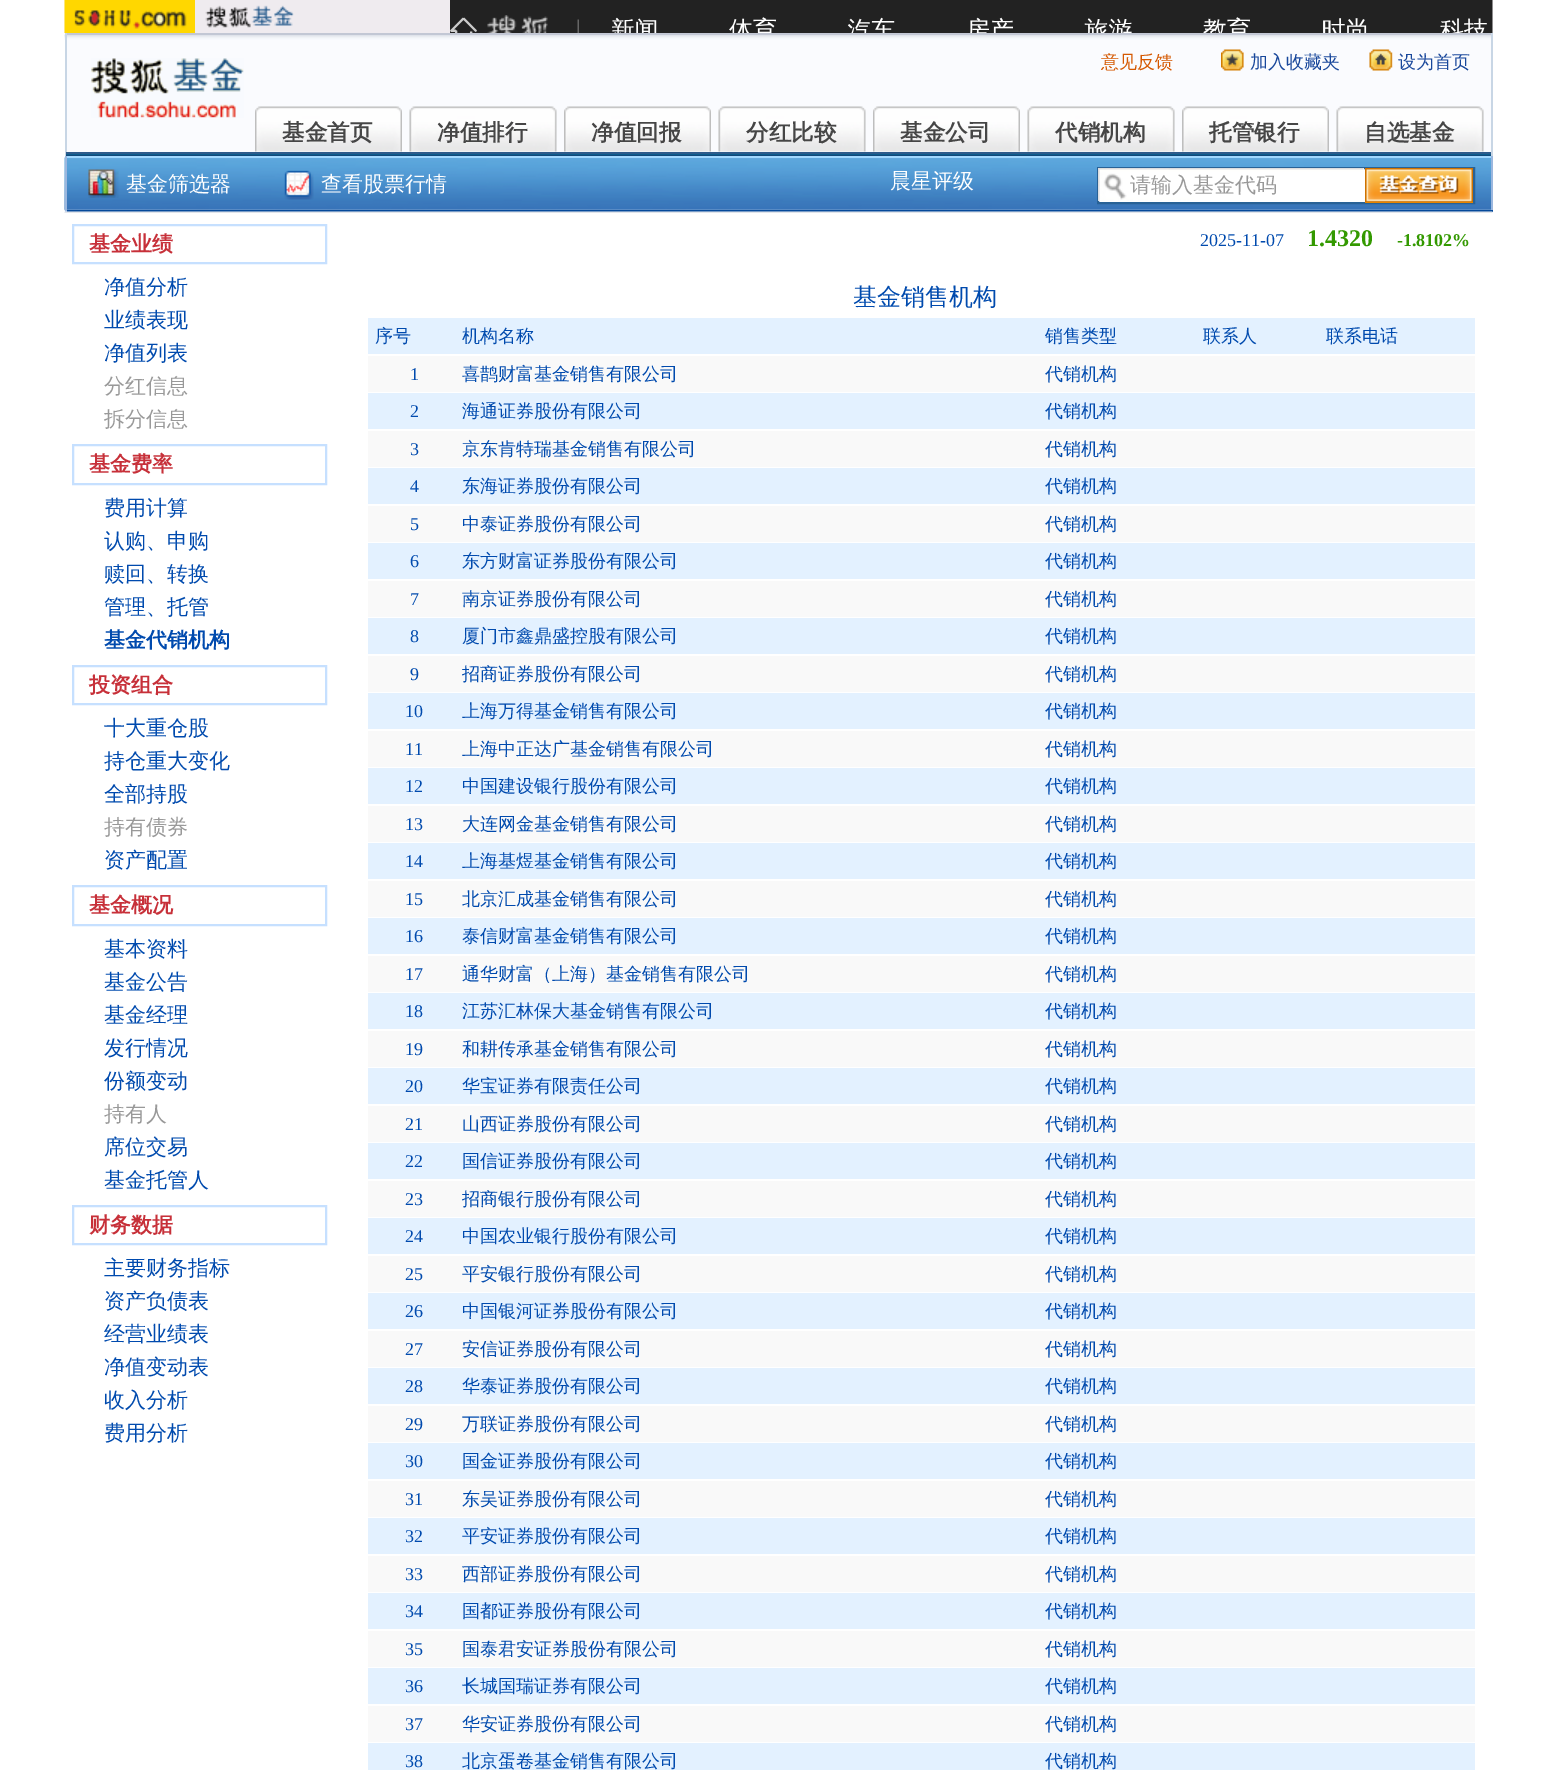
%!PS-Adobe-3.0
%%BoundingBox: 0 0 1557 1770
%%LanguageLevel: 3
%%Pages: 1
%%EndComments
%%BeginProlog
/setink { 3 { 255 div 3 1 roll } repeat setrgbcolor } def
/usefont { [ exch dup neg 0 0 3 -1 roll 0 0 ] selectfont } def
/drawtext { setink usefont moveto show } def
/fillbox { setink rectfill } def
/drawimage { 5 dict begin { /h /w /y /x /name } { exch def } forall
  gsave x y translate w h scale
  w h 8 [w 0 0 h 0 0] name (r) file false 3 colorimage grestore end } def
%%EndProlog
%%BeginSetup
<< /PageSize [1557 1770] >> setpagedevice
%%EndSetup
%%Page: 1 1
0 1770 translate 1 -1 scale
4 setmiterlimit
0 0 1557 1770 255 255 255 fillbox
(assets/img1.rgb) 64 0 1429 33 drawimage
67 40 1424 112 250 251 254 fillbox
(assets/img2.rgb) 64 34 1427 6 drawimage
65 33 1428 2 194 199 212 fillbox
1491 33 2 123 200 214 229 fillbox
65 33 2 123 200 214 229 fillbox
(assets/img3.rgb) 91 58 153 60 drawimage
(意见反馈) 1101 68 /WenQuanYiZenHei-Medium 18 213 88 0 drawtext
(assets/img4.rgb) 1221 49 23 22 drawimage
(加入收藏夹) 1250 68 /WenQuanYiZenHei-Medium 18 24 71 155 drawtext
(assets/img5.rgb) 1369 49 24 22 drawimage
(设为首页) 1398 68 /WenQuanYiZenHei-Medium 18 24 71 155 drawtext
(assets/img6.rgb) 255 106 147 46 drawimage
(基金首页) 282 140 /WenQuanYiZenHei-Bold 22.5 70 70 70 drawtext
(assets/img7.rgb) 409 106 148 46 drawimage
(净值排行) 437 140 /WenQuanYiZenHei-Bold 22.5 70 70 70 drawtext
(assets/img8.rgb) 564 106 147 46 drawimage
(净值回报) 591 140 /WenQuanYiZenHei-Bold 22.5 70 70 70 drawtext
(assets/img9.rgb) 718 106 148 46 drawimage
(分红比较) 746 140 /WenQuanYiZenHei-Bold 22.5 70 70 70 drawtext
(assets/img6.rgb) 873 106 147 46 drawimage
(基金公司) 900 140 /WenQuanYiZenHei-Bold 22.5 70 70 70 drawtext
(assets/img10.rgb) 1027 106 148 46 drawimage
(代销机构) 1055 140 /WenQuanYiZenHei-Bold 22.5 70 70 70 drawtext
(assets/img8.rgb) 1182 106 147 46 drawimage
(托管银行) 1209 140 /WenQuanYiZenHei-Bold 22.5 70 70 70 drawtext
(assets/img11.rgb) 1336 106 148 46 drawimage
(自选基金) 1364 140 /WenQuanYiZenHei-Bold 22.5 70 70 70 drawtext
66 154 1425 1 11 92 140 fillbox
66 152 1425 2 46 91 139 fillbox
66 155 1425 1 18 72 121 fillbox
(assets/img12.rgb) 64 156 1427 56 drawimage
65 156 1428 2 161 216 255 fillbox
1491 156 2 56 155 183 222 fillbox
65 210 1428 2 5 73 154 fillbox
65 156 2 56 155 183 222 fillbox
(assets/img13.rgb) 88 169 31 29 drawimage
(基金筛选器) 126 191 /WenQuanYiZenHei-Medium 21 255 255 255 drawtext
(assets/img14.rgb) 284 170 30 30 drawimage
(查看股票行情) 321 191 /WenQuanYiZenHei-Medium 21 255 255 255 drawtext
(晨星评级) 890 188 /WenQuanYiZenHei-Medium 21 255 255 255 drawtext
1099 169 266 33 255 255 255 fillbox
41 98 150 setink
2 setlinewidth
1098 168 376 35 rectstroke
1363 168 1 1 255 255 255 fillbox
(assets/img15.rgb) 1098 168 266 33 drawimage
(请输入基金代码) 1130 192 /WenQuanYiZenHei-Medium 21 153 153 153 drawtext
1365 202 108 1 255 153 0 fillbox
(assets/img16.rgb) 1365 168 108 35 drawimage
(assets/img17.rgb) 64 211 1429 2 drawimage
198 224 255 setink
73 225 253 38 rectstroke
(基金业绩) 89 251 /WenQuanYiZenHei-Bold 21 199 48 57 drawtext
(净值分析) 104 294 /WenQuanYiZenHei-Medium 21 0 74 174 drawtext
(业绩表现) 104 327 /WenQuanYiZenHei-Medium 21 0 74 174 drawtext
(净值列表) 104 360 /WenQuanYiZenHei-Medium 21 0 74 174 drawtext
(分红信息) 104 393 /WenQuanYiZenHei-Medium 21 153 153 153 drawtext
(拆分信息) 104 426 /WenQuanYiZenHei-Medium 21 153 153 153 drawtext
198 224 255 setink
73 445 253 39 rectstroke
(基金费率) 89 471 /WenQuanYiZenHei-Bold 21 199 48 57 drawtext
(费用计算) 104 515 /WenQuanYiZenHei-Medium 21 0 74 174 drawtext
(认购、申购) 104 548 /WenQuanYiZenHei-Medium 21 0 74 174 drawtext
(赎回、转换) 104 581 /WenQuanYiZenHei-Medium 21 0 74 174 drawtext
(管理、托管) 104 614 /WenQuanYiZenHei-Medium 21 0 74 174 drawtext
(基金代销机构) 104 647 /WenQuanYiZenHei-Bold 21 0 74 174 drawtext
198 224 255 setink
73 666 253 38 rectstroke
(投资组合) 89 692 /WenQuanYiZenHei-Bold 21 199 48 57 drawtext
(十大重仓股) 104 735 /WenQuanYiZenHei-Medium 21 0 74 174 drawtext
(持仓重大变化) 104 768 /WenQuanYiZenHei-Medium 21 0 74 174 drawtext
(全部持股) 104 801 /WenQuanYiZenHei-Medium 21 0 74 174 drawtext
(持有债券) 104 834 /WenQuanYiZenHei-Medium 21 153 153 153 drawtext
(资产配置) 104 867 /WenQuanYiZenHei-Medium 21 0 74 174 drawtext
198 224 255 setink
73 886 253 39 rectstroke
(基金概况) 89 912 /WenQuanYiZenHei-Bold 21 199 48 57 drawtext
(基本资料) 104 956 /WenQuanYiZenHei-Medium 21 0 74 174 drawtext
(基金公告) 104 989 /WenQuanYiZenHei-Medium 21 0 74 174 drawtext
(基金经理) 104 1022 /WenQuanYiZenHei-Medium 21 0 74 174 drawtext
(发行情况) 104 1055 /WenQuanYiZenHei-Medium 21 0 74 174 drawtext
(份额变动) 104 1088 /WenQuanYiZenHei-Medium 21 0 74 174 drawtext
(持有人) 104 1121 /WenQuanYiZenHei-Medium 21 153 153 153 drawtext
(席位交易) 104 1154 /WenQuanYiZenHei-Medium 21 0 74 174 drawtext
(基金托管人) 104 1187 /WenQuanYiZenHei-Medium 21 0 74 174 drawtext
198 224 255 setink
73 1206 253 38 rectstroke
(财务数据) 89 1232 /WenQuanYiZenHei-Bold 21 199 48 57 drawtext
(主要财务指标) 104 1275 /WenQuanYiZenHei-Medium 21 0 74 174 drawtext
(资产负债表) 104 1308 /WenQuanYiZenHei-Medium 21 0 74 174 drawtext
(经营业绩表) 104 1341 /WenQuanYiZenHei-Medium 21 0 74 174 drawtext
(净值变动表) 104 1374 /WenQuanYiZenHei-Medium 21 0 74 174 drawtext
(收入分析) 104 1407 /WenQuanYiZenHei-Medium 21 0 74 174 drawtext
(费用分析) 104 1440 /WenQuanYiZenHei-Medium 21 0 74 174 drawtext
(2025-11-07) 1200 246 /LiberationSerif-Regular 18 0 74 174 drawtext
(1.4320) 1307 246 /LiberationSerif-Bold 24 51 153 0 drawtext
(-1.8102%) 1397 246 /LiberationSerif-Bold 18 51 153 0 drawtext
(基金销售机构) 853 305 /WenQuanYiZenHei-Medium 24 0 74 174 drawtext
368 318 1107 36 227 241 255 fillbox
(序号) 375 342 /WenQuanYiZenHei-Medium 18 0 74 174 drawtext
(机构名称) 462 342 /WenQuanYiZenHei-Medium 18 0 74 174 drawtext
(销售类型) 1045 342 /WenQuanYiZenHei-Medium 18 0 74 174 drawtext
(联系人) 1203 342 /WenQuanYiZenHei-Medium 18 0 74 174 drawtext
(联系电话) 1326 342 /WenQuanYiZenHei-Medium 18 0 74 174 drawtext
368 356 1107 36 249 249 249 fillbox
(1) 410 380 /LiberationSerif-Regular 18 0 74 174 drawtext
(喜鹊财富基金销售有限公司) 462 380 /WenQuanYiZenHei-Medium 18 0 74 174 drawtext
(代销机构) 1045 380 /WenQuanYiZenHei-Medium 18 0 74 174 drawtext
368 393 1107 36 227 241 255 fillbox
(2) 410 417 /LiberationSerif-Regular 18 0 74 174 drawtext
(海通证券股份有限公司) 462 417 /WenQuanYiZenHei-Medium 18 0 74 174 drawtext
(代销机构) 1045 417 /WenQuanYiZenHei-Medium 18 0 74 174 drawtext
368 431 1107 36 249 249 249 fillbox
(3) 410 455 /LiberationSerif-Regular 18 0 74 174 drawtext
(京东肯特瑞基金销售有限公司) 462 455 /WenQuanYiZenHei-Medium 18 0 74 174 drawtext
(代销机构) 1045 455 /WenQuanYiZenHei-Medium 18 0 74 174 drawtext
368 468 1107 36 227 241 255 fillbox
(4) 410 492 /LiberationSerif-Regular 18 0 74 174 drawtext
(东海证券股份有限公司) 462 492 /WenQuanYiZenHei-Medium 18 0 74 174 drawtext
(代销机构) 1045 492 /WenQuanYiZenHei-Medium 18 0 74 174 drawtext
368 506 1107 36 249 249 249 fillbox
(5) 410 530 /LiberationSerif-Regular 18 0 74 174 drawtext
(中泰证券股份有限公司) 462 530 /WenQuanYiZenHei-Medium 18 0 74 174 drawtext
(代销机构) 1045 530 /WenQuanYiZenHei-Medium 18 0 74 174 drawtext
368 543 1107 36 227 241 255 fillbox
(6) 410 567 /LiberationSerif-Regular 18 0 74 174 drawtext
(东方财富证券股份有限公司) 462 567 /WenQuanYiZenHei-Medium 18 0 74 174 drawtext
(代销机构) 1045 567 /WenQuanYiZenHei-Medium 18 0 74 174 drawtext
368 581 1107 36 249 249 249 fillbox
(7) 410 605 /LiberationSerif-Regular 18 0 74 174 drawtext
(南京证券股份有限公司) 462 605 /WenQuanYiZenHei-Medium 18 0 74 174 drawtext
(代销机构) 1045 605 /WenQuanYiZenHei-Medium 18 0 74 174 drawtext
368 618 1107 36 227 241 255 fillbox
(8) 410 642 /LiberationSerif-Regular 18 0 74 174 drawtext
(厦门市鑫鼎盛控股有限公司) 462 642 /WenQuanYiZenHei-Medium 18 0 74 174 drawtext
(代销机构) 1045 642 /WenQuanYiZenHei-Medium 18 0 74 174 drawtext
368 656 1107 36 249 249 249 fillbox
(9) 410 680 /LiberationSerif-Regular 18 0 74 174 drawtext
(招商证券股份有限公司) 462 680 /WenQuanYiZenHei-Medium 18 0 74 174 drawtext
(代销机构) 1045 680 /WenQuanYiZenHei-Medium 18 0 74 174 drawtext
368 693 1107 36 227 241 255 fillbox
(10) 405 717 /LiberationSerif-Regular 18 0 74 174 drawtext
(上海万得基金销售有限公司) 462 717 /WenQuanYiZenHei-Medium 18 0 74 174 drawtext
(代销机构) 1045 717 /WenQuanYiZenHei-Medium 18 0 74 174 drawtext
368 731 1107 36 249 249 249 fillbox
(11) 405 755 /LiberationSerif-Regular 18 0 74 174 drawtext
(上海中正达广基金销售有限公司) 462 755 /WenQuanYiZenHei-Medium 18 0 74 174 drawtext
(代销机构) 1045 755 /WenQuanYiZenHei-Medium 18 0 74 174 drawtext
368 768 1107 36 227 241 255 fillbox
(12) 405 792 /LiberationSerif-Regular 18 0 74 174 drawtext
(中国建设银行股份有限公司) 462 792 /WenQuanYiZenHei-Medium 18 0 74 174 drawtext
(代销机构) 1045 792 /WenQuanYiZenHei-Medium 18 0 74 174 drawtext
368 806 1107 36 249 249 249 fillbox
(13) 405 830 /LiberationSerif-Regular 18 0 74 174 drawtext
(大连网金基金销售有限公司) 462 830 /WenQuanYiZenHei-Medium 18 0 74 174 drawtext
(代销机构) 1045 830 /WenQuanYiZenHei-Medium 18 0 74 174 drawtext
368 843 1107 36 227 241 255 fillbox
(14) 405 867 /LiberationSerif-Regular 18 0 74 174 drawtext
(上海基煜基金销售有限公司) 462 867 /WenQuanYiZenHei-Medium 18 0 74 174 drawtext
(代销机构) 1045 867 /WenQuanYiZenHei-Medium 18 0 74 174 drawtext
368 881 1107 36 249 249 249 fillbox
(15) 405 905 /LiberationSerif-Regular 18 0 74 174 drawtext
(北京汇成基金销售有限公司) 462 905 /WenQuanYiZenHei-Medium 18 0 74 174 drawtext
(代销机构) 1045 905 /WenQuanYiZenHei-Medium 18 0 74 174 drawtext
368 918 1107 36 227 241 255 fillbox
(16) 405 942 /LiberationSerif-Regular 18 0 74 174 drawtext
(泰信财富基金销售有限公司) 462 942 /WenQuanYiZenHei-Medium 18 0 74 174 drawtext
(代销机构) 1045 942 /WenQuanYiZenHei-Medium 18 0 74 174 drawtext
368 956 1107 36 249 249 249 fillbox
(17) 405 980 /LiberationSerif-Regular 18 0 74 174 drawtext
(通华财富（上海）基金销售有限公司) 462 980 /WenQuanYiZenHei-Medium 18 0 74 174 drawtext
(代销机构) 1045 980 /WenQuanYiZenHei-Medium 18 0 74 174 drawtext
368 993 1107 36 227 241 255 fillbox
(18) 405 1017 /LiberationSerif-Regular 18 0 74 174 drawtext
(江苏汇林保大基金销售有限公司) 462 1017 /WenQuanYiZenHei-Medium 18 0 74 174 drawtext
(代销机构) 1045 1017 /WenQuanYiZenHei-Medium 18 0 74 174 drawtext
368 1031 1107 36 249 249 249 fillbox
(19) 405 1055 /LiberationSerif-Regular 18 0 74 174 drawtext
(和耕传承基金销售有限公司) 462 1055 /WenQuanYiZenHei-Medium 18 0 74 174 drawtext
(代销机构) 1045 1055 /WenQuanYiZenHei-Medium 18 0 74 174 drawtext
368 1068 1107 36 227 241 255 fillbox
(20) 405 1092 /LiberationSerif-Regular 18 0 74 174 drawtext
(华宝证券有限责任公司) 462 1092 /WenQuanYiZenHei-Medium 18 0 74 174 drawtext
(代销机构) 1045 1092 /WenQuanYiZenHei-Medium 18 0 74 174 drawtext
368 1106 1107 36 249 249 249 fillbox
(21) 405 1130 /LiberationSerif-Regular 18 0 74 174 drawtext
(山西证券股份有限公司) 462 1130 /WenQuanYiZenHei-Medium 18 0 74 174 drawtext
(代销机构) 1045 1130 /WenQuanYiZenHei-Medium 18 0 74 174 drawtext
368 1143 1107 36 227 241 255 fillbox
(22) 405 1167 /LiberationSerif-Regular 18 0 74 174 drawtext
(国信证券股份有限公司) 462 1167 /WenQuanYiZenHei-Medium 18 0 74 174 drawtext
(代销机构) 1045 1167 /WenQuanYiZenHei-Medium 18 0 74 174 drawtext
368 1181 1107 36 249 249 249 fillbox
(23) 405 1205 /LiberationSerif-Regular 18 0 74 174 drawtext
(招商银行股份有限公司) 462 1205 /WenQuanYiZenHei-Medium 18 0 74 174 drawtext
(代销机构) 1045 1205 /WenQuanYiZenHei-Medium 18 0 74 174 drawtext
368 1218 1107 36 227 241 255 fillbox
(24) 405 1242 /LiberationSerif-Regular 18 0 74 174 drawtext
(中国农业银行股份有限公司) 462 1242 /WenQuanYiZenHei-Medium 18 0 74 174 drawtext
(代销机构) 1045 1242 /WenQuanYiZenHei-Medium 18 0 74 174 drawtext
368 1256 1107 36 249 249 249 fillbox
(25) 405 1280 /LiberationSerif-Regular 18 0 74 174 drawtext
(平安银行股份有限公司) 462 1280 /WenQuanYiZenHei-Medium 18 0 74 174 drawtext
(代销机构) 1045 1280 /WenQuanYiZenHei-Medium 18 0 74 174 drawtext
368 1293 1107 36 227 241 255 fillbox
(26) 405 1317 /LiberationSerif-Regular 18 0 74 174 drawtext
(中国银河证券股份有限公司) 462 1317 /WenQuanYiZenHei-Medium 18 0 74 174 drawtext
(代销机构) 1045 1317 /WenQuanYiZenHei-Medium 18 0 74 174 drawtext
368 1331 1107 36 249 249 249 fillbox
(27) 405 1355 /LiberationSerif-Regular 18 0 74 174 drawtext
(安信证券股份有限公司) 462 1355 /WenQuanYiZenHei-Medium 18 0 74 174 drawtext
(代销机构) 1045 1355 /WenQuanYiZenHei-Medium 18 0 74 174 drawtext
368 1368 1107 36 227 241 255 fillbox
(28) 405 1392 /LiberationSerif-Regular 18 0 74 174 drawtext
(华泰证券股份有限公司) 462 1392 /WenQuanYiZenHei-Medium 18 0 74 174 drawtext
(代销机构) 1045 1392 /WenQuanYiZenHei-Medium 18 0 74 174 drawtext
368 1406 1107 36 249 249 249 fillbox
(29) 405 1430 /LiberationSerif-Regular 18 0 74 174 drawtext
(万联证券股份有限公司) 462 1430 /WenQuanYiZenHei-Medium 18 0 74 174 drawtext
(代销机构) 1045 1430 /WenQuanYiZenHei-Medium 18 0 74 174 drawtext
368 1443 1107 36 227 241 255 fillbox
(30) 405 1467 /LiberationSerif-Regular 18 0 74 174 drawtext
(国金证券股份有限公司) 462 1467 /WenQuanYiZenHei-Medium 18 0 74 174 drawtext
(代销机构) 1045 1467 /WenQuanYiZenHei-Medium 18 0 74 174 drawtext
368 1481 1107 36 249 249 249 fillbox
(31) 405 1505 /LiberationSerif-Regular 18 0 74 174 drawtext
(东吴证券股份有限公司) 462 1505 /WenQuanYiZenHei-Medium 18 0 74 174 drawtext
(代销机构) 1045 1505 /WenQuanYiZenHei-Medium 18 0 74 174 drawtext
368 1518 1107 36 227 241 255 fillbox
(32) 405 1542 /LiberationSerif-Regular 18 0 74 174 drawtext
(平安证券股份有限公司) 462 1542 /WenQuanYiZenHei-Medium 18 0 74 174 drawtext
(代销机构) 1045 1542 /WenQuanYiZenHei-Medium 18 0 74 174 drawtext
368 1556 1107 36 249 249 249 fillbox
(33) 405 1580 /LiberationSerif-Regular 18 0 74 174 drawtext
(西部证券股份有限公司) 462 1580 /WenQuanYiZenHei-Medium 18 0 74 174 drawtext
(代销机构) 1045 1580 /WenQuanYiZenHei-Medium 18 0 74 174 drawtext
368 1593 1107 36 227 241 255 fillbox
(34) 405 1617 /LiberationSerif-Regular 18 0 74 174 drawtext
(国都证券股份有限公司) 462 1617 /WenQuanYiZenHei-Medium 18 0 74 174 drawtext
(代销机构) 1045 1617 /WenQuanYiZenHei-Medium 18 0 74 174 drawtext
368 1631 1107 36 249 249 249 fillbox
(35) 405 1655 /LiberationSerif-Regular 18 0 74 174 drawtext
(国泰君安证券股份有限公司) 462 1655 /WenQuanYiZenHei-Medium 18 0 74 174 drawtext
(代销机构) 1045 1655 /WenQuanYiZenHei-Medium 18 0 74 174 drawtext
368 1668 1107 36 227 241 255 fillbox
(36) 405 1692 /LiberationSerif-Regular 18 0 74 174 drawtext
(长城国瑞证券有限公司) 462 1692 /WenQuanYiZenHei-Medium 18 0 74 174 drawtext
(代销机构) 1045 1692 /WenQuanYiZenHei-Medium 18 0 74 174 drawtext
368 1706 1107 36 249 249 249 fillbox
(37) 405 1730 /LiberationSerif-Regular 18 0 74 174 drawtext
(华安证券股份有限公司) 462 1730 /WenQuanYiZenHei-Medium 18 0 74 174 drawtext
(代销机构) 1045 1730 /WenQuanYiZenHei-Medium 18 0 74 174 drawtext
368 1743 1107 27 227 241 255 fillbox
(38) 405 1767 /LiberationSerif-Regular 18 0 74 174 drawtext
(北京蛋卷基金销售有限公司) 462 1767 /WenQuanYiZenHei-Medium 18 0 74 174 drawtext
(代销机构) 1045 1767 /WenQuanYiZenHei-Medium 18 0 74 174 drawtext
showpage
%%EOF
